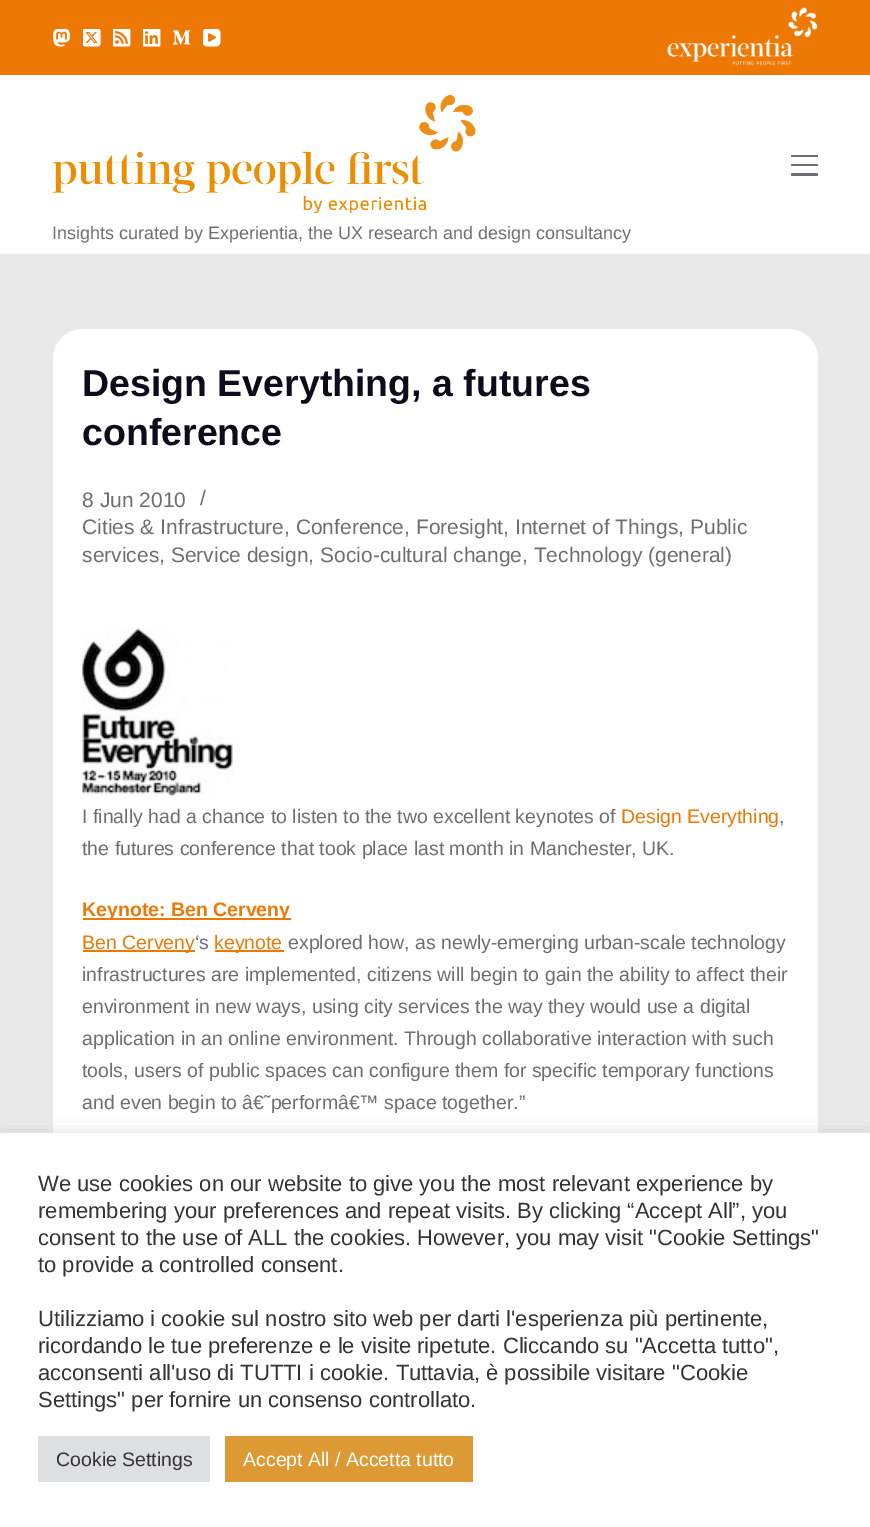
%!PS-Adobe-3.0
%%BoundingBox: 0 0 870 1527
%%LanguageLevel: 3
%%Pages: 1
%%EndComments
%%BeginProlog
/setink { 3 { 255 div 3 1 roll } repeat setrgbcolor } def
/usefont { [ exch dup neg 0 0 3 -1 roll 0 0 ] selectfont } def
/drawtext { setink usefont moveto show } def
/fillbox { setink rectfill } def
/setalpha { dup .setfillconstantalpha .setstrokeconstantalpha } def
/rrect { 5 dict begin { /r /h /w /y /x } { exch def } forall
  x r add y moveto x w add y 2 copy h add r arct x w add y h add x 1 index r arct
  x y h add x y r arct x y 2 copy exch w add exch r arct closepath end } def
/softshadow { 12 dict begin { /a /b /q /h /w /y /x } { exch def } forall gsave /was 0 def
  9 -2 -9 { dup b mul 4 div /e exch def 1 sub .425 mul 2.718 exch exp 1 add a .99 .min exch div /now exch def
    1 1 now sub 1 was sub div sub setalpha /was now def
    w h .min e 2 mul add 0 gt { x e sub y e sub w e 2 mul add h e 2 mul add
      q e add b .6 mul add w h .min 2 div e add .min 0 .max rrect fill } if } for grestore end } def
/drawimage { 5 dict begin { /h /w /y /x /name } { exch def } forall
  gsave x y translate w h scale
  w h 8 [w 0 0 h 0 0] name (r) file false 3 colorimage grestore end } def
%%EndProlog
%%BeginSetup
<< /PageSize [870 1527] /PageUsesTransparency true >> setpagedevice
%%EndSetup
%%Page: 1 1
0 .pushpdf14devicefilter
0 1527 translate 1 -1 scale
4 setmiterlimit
0 0 870 1527 233 233 233 fillbox
0 0 870 75 237 120 4 fillbox
(assets/img1.rgb) 53 29 17 18 drawimage
(assets/img2.rgb) 83 29 18 18 drawimage
(assets/img3.rgb) 113 29 18 18 drawimage
(assets/img4.rgb) 143 29 18 18 drawimage
(assets/img5.rgb) 173 30 18 15 drawimage
(assets/img6.rgb) 203 29 18 18 drawimage
(assets/img7.rgb) 667 7 151 59 drawimage
0 75 870 179 255 255 255 fillbox
110 109 118 setink
791 155 27 2 1 rrect fill
791 164 27 2 1 rrect fill
791 173 27 3 1.5 rrect fill
(assets/img8.rgb) 52 94 424 119 drawimage
(Insights curated by Experientia, the UX research and design consultancy) 52 239 /LiberationSans-Regular 18 110 109 118 drawtext
255 255 255 setink
53 329 765 1039 30 rrect fill
(Design Everything, a futures) 82 396 /LiberationSans-Bold 37.5 14 12 27 drawtext
(conference) 82 445 /LiberationSans-Bold 37.5 14 12 27 drawtext
(8 Jun 2010) 82 507 /LiberationSans-Regular 21 110 109 118 drawtext
(/) 200 505 /LiberationSans-Regular 21 110 109 118 drawtext
(Cities & Infrastructure, Conference, Foresight, Internet of Things, Public) 82 534 /LiberationSans-Regular 21 110 109 118 drawtext
(services, Service design, Socio-cultural change, Technology \(general\)) 82 562 /LiberationSans-Regular 21 110 109 118 drawtext
(assets/img9.rgb) 82 628 151 168 drawimage
(I finally had a chance to listen to the two excellent keynotes of) 82 823 /LiberationSans-Regular 19.5 110 109 118 drawtext
(Design Everything) 621 823 /LiberationSans-Regular 19.5 237 120 4 drawtext
(,) 779 823 /LiberationSans-Regular 19.5 110 109 118 drawtext
(the futures conference that took place last month in Manchester, UK.) 82 855 /LiberationSans-Regular 19.5 110 109 118 drawtext
83 918 208 2 237 120 4 fillbox
(Keynote: Ben Cerveny) 82 916 /LiberationSans-Bold 19.5 237 120 4 drawtext
83 950 112 2 237 120 4 fillbox
(Ben Cerveny) 82 949 /LiberationSans-Regular 19.5 237 120 4 drawtext
(‘s) 195 949 /LiberationSans-Regular 19.5 110 109 118 drawtext
215 950 69 2 237 120 4 fillbox
(keynote) 214 949 /LiberationSans-Regular 19.5 237 120 4 drawtext
(explored how, as newly-emerging urban-scale technology) 288 949 /LiberationSans-Regular 19.5 110 109 118 drawtext
(infrastructures are implemented, citizens will begin to gain the ability to affect their) 82 981 /LiberationSans-Regular 19.5 110 109 118 drawtext
(environment in new ways, using city services the way they would use a digital) 82 1013 /LiberationSans-Regular 19.5 110 109 118 drawtext
(application in an online environment. Through collaborative interaction with such) 82 1045 /LiberationSans-Regular 19.5 110 109 118 drawtext
(tools, users of public spaces can configure them for specific temporary functions) 82 1077 /LiberationSans-Regular 19.5 110 109 118 drawtext
(and even begin to â€˜performâ€™ space together.”) 82 1109 /LiberationSans-Regular 19.5 110 109 118 drawtext
172 171 171 setink
0 1131 870 395 0 7.5 0.3 softshadow
0 1133 870 394 255 255 255 fillbox
(We use cookies on our website to give you the most relevant experience by) 38 1191 /LiberationSans-Regular 22 51 51 51 drawtext
(remembering your preferences and repeat visits. By clicking “Accept All”, you) 38 1218 /LiberationSans-Regular 22 51 51 51 drawtext
(consent to the use of ALL the cookies. However, you may visit "Cookie Settings") 38 1245 /LiberationSans-Regular 22 51 51 51 drawtext
(to provide a controlled consent.) 38 1272 /LiberationSans-Regular 22 51 51 51 drawtext
(Utilizziamo i cookie sul nostro sito web per darti l'esperienza più pertinente,) 38 1326 /LiberationSans-Regular 22 51 51 51 drawtext
(ricordando le tue preferenze e le visite ripetute. Cliccando su "Accetta tutto",) 38 1353 /LiberationSans-Regular 22 51 51 51 drawtext
(acconsenti all'uso di TUTTI i cookie. Tuttavia, è possibile visitare "Cookie) 38 1380 /LiberationSans-Regular 22 51 51 51 drawtext
(Settings" per fornire un consenso controllato.) 38 1407 /LiberationSans-Regular 22 51 51 51 drawtext
38 1436 172 46 222 223 224 fillbox
(Cookie Settings) 56 1466 /LiberationSans-Regular 19.5 51 51 51 drawtext
225 1436 248 46 221 153 51 fillbox
(Accept All / Accetta tutto) 243 1466 /LiberationSans-Regular 19.5 255 255 255 drawtext
.poppdf14devicefilter showpage
%%EOF
